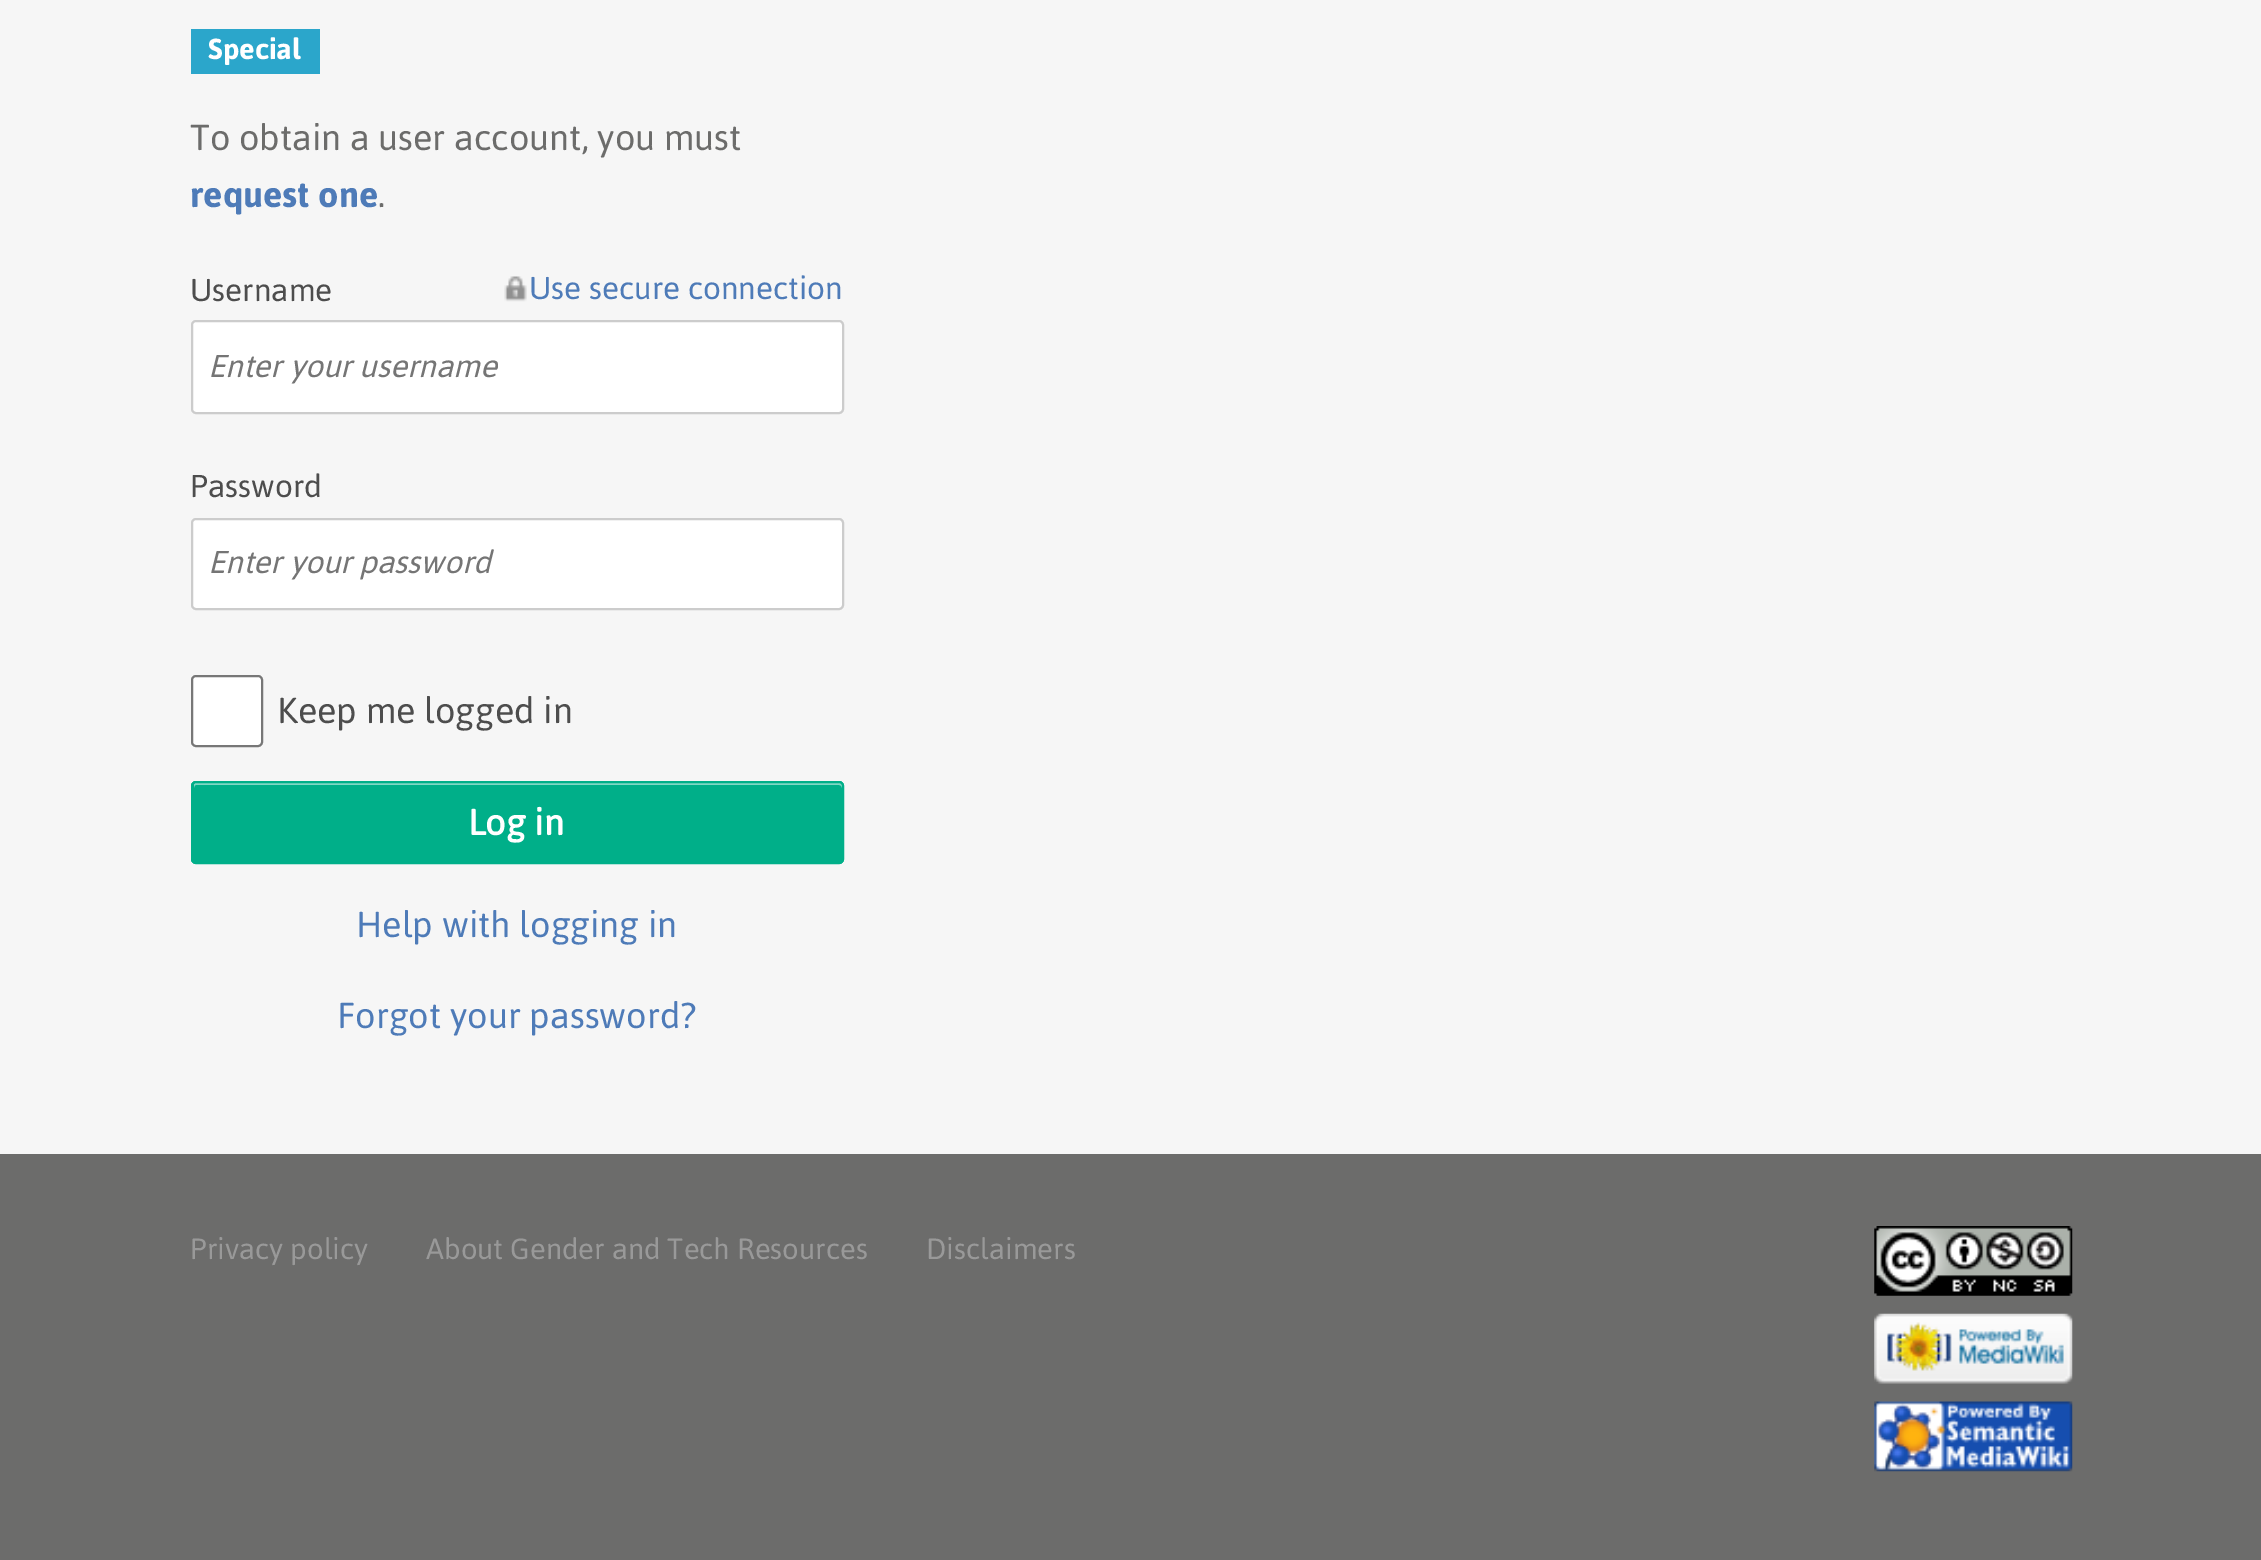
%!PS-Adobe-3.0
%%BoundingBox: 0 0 2261 1560
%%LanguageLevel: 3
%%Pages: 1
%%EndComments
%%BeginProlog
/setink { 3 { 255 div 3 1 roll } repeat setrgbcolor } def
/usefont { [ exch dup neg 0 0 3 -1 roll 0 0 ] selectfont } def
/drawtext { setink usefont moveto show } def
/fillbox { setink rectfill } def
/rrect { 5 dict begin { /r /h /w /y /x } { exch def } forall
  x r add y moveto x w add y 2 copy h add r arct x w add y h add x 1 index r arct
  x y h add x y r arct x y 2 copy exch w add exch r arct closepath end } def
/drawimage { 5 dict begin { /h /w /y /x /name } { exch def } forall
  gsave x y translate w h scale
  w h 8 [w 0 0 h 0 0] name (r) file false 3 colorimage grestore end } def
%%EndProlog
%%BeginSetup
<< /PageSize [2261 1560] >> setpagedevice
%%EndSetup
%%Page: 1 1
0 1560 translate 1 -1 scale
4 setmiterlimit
0 0 2261 1560 246 246 246 fillbox
191 29 129 45 43 166 203 fillbox
(Special) 208 59 /Asap-Bold 29 255 255 255 drawtext
(To obtain a user account, you must) 190 150 /Asap-Regular 36 108 108 107 drawtext
(request one) 190 207 /Asap-Bold 36 78 123 184 drawtext
(.) 378 207 /Asap-Regular 36 108 108 107 drawtext
(Username) 190 301 /Asap-Regular 31.5 77 77 77 drawtext
(assets/img1.rgb) 504 276 23 26 drawimage
(Use secure connection) 529 299 /Asap-Regular 31.5 78 123 184 drawtext
255 255 255 setink
192 321 651 92 4 rrect gsave fill grestore
204 204 204 setink
2 setlinewidth
stroke
(Enter your username) 208 377 /Asap-Italic 31.5 117 117 117 drawtext
(Password) 190 497 /Asap-Regular 31.5 77 77 77 drawtext
255 255 255 setink
192 519 651 90 4 rrect gsave fill grestore
204 204 204 setink
stroke
(Enter your password) 208 573 /Asap-Italic 31.5 117 117 117 drawtext
255 255 255 setink
192 676 70 70 4 rrect gsave fill grestore
119 119 119 setink
stroke
(Keep me logged in) 277 723 /Asap-Regular 36 77 77 77 drawtext
0 175 137 setink
191 781 653 83 5 rrect fill
128 215 196 setink
196 785 moveto 839 785 lineto 840 785 842 786 842 788 curveto 842 785 lineto 842 784 841 783 840 783 curveto 196 783 lineto 195 783 194 784 194 785 curveto 194 788 lineto 194 786 195 785 196 785 curveto closepath fill
0 175 137 setink
192 782 651 81 4 rrect stroke
(Log in) 468 835 /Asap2-Bold 36 255 255 255 drawtext
(Help with logging in) 356 937 /Asap-Regular 36 78 123 184 drawtext
(Forgot your password?) 337 1028 /Asap-Regular 36 78 123 184 drawtext
0 1154 2261 406 108 108 107 fillbox
(Privacy policy) 190 1259 /Asap-Regular 29.2 153 153 153 drawtext
(About Gender and Tech Resources) 426 1259 /Asap-Regular 29.2 153 153 153 drawtext
(Disclaimers) 926 1259 /Asap-Regular 29.2 153 153 153 drawtext
(assets/img2.rgb) 1874 1226 199 70 drawimage
(assets/img3.rgb) 1874 1313 199 71 drawimage
(assets/img4.rgb) 1874 1401 199 71 drawimage
showpage
%%EOF
